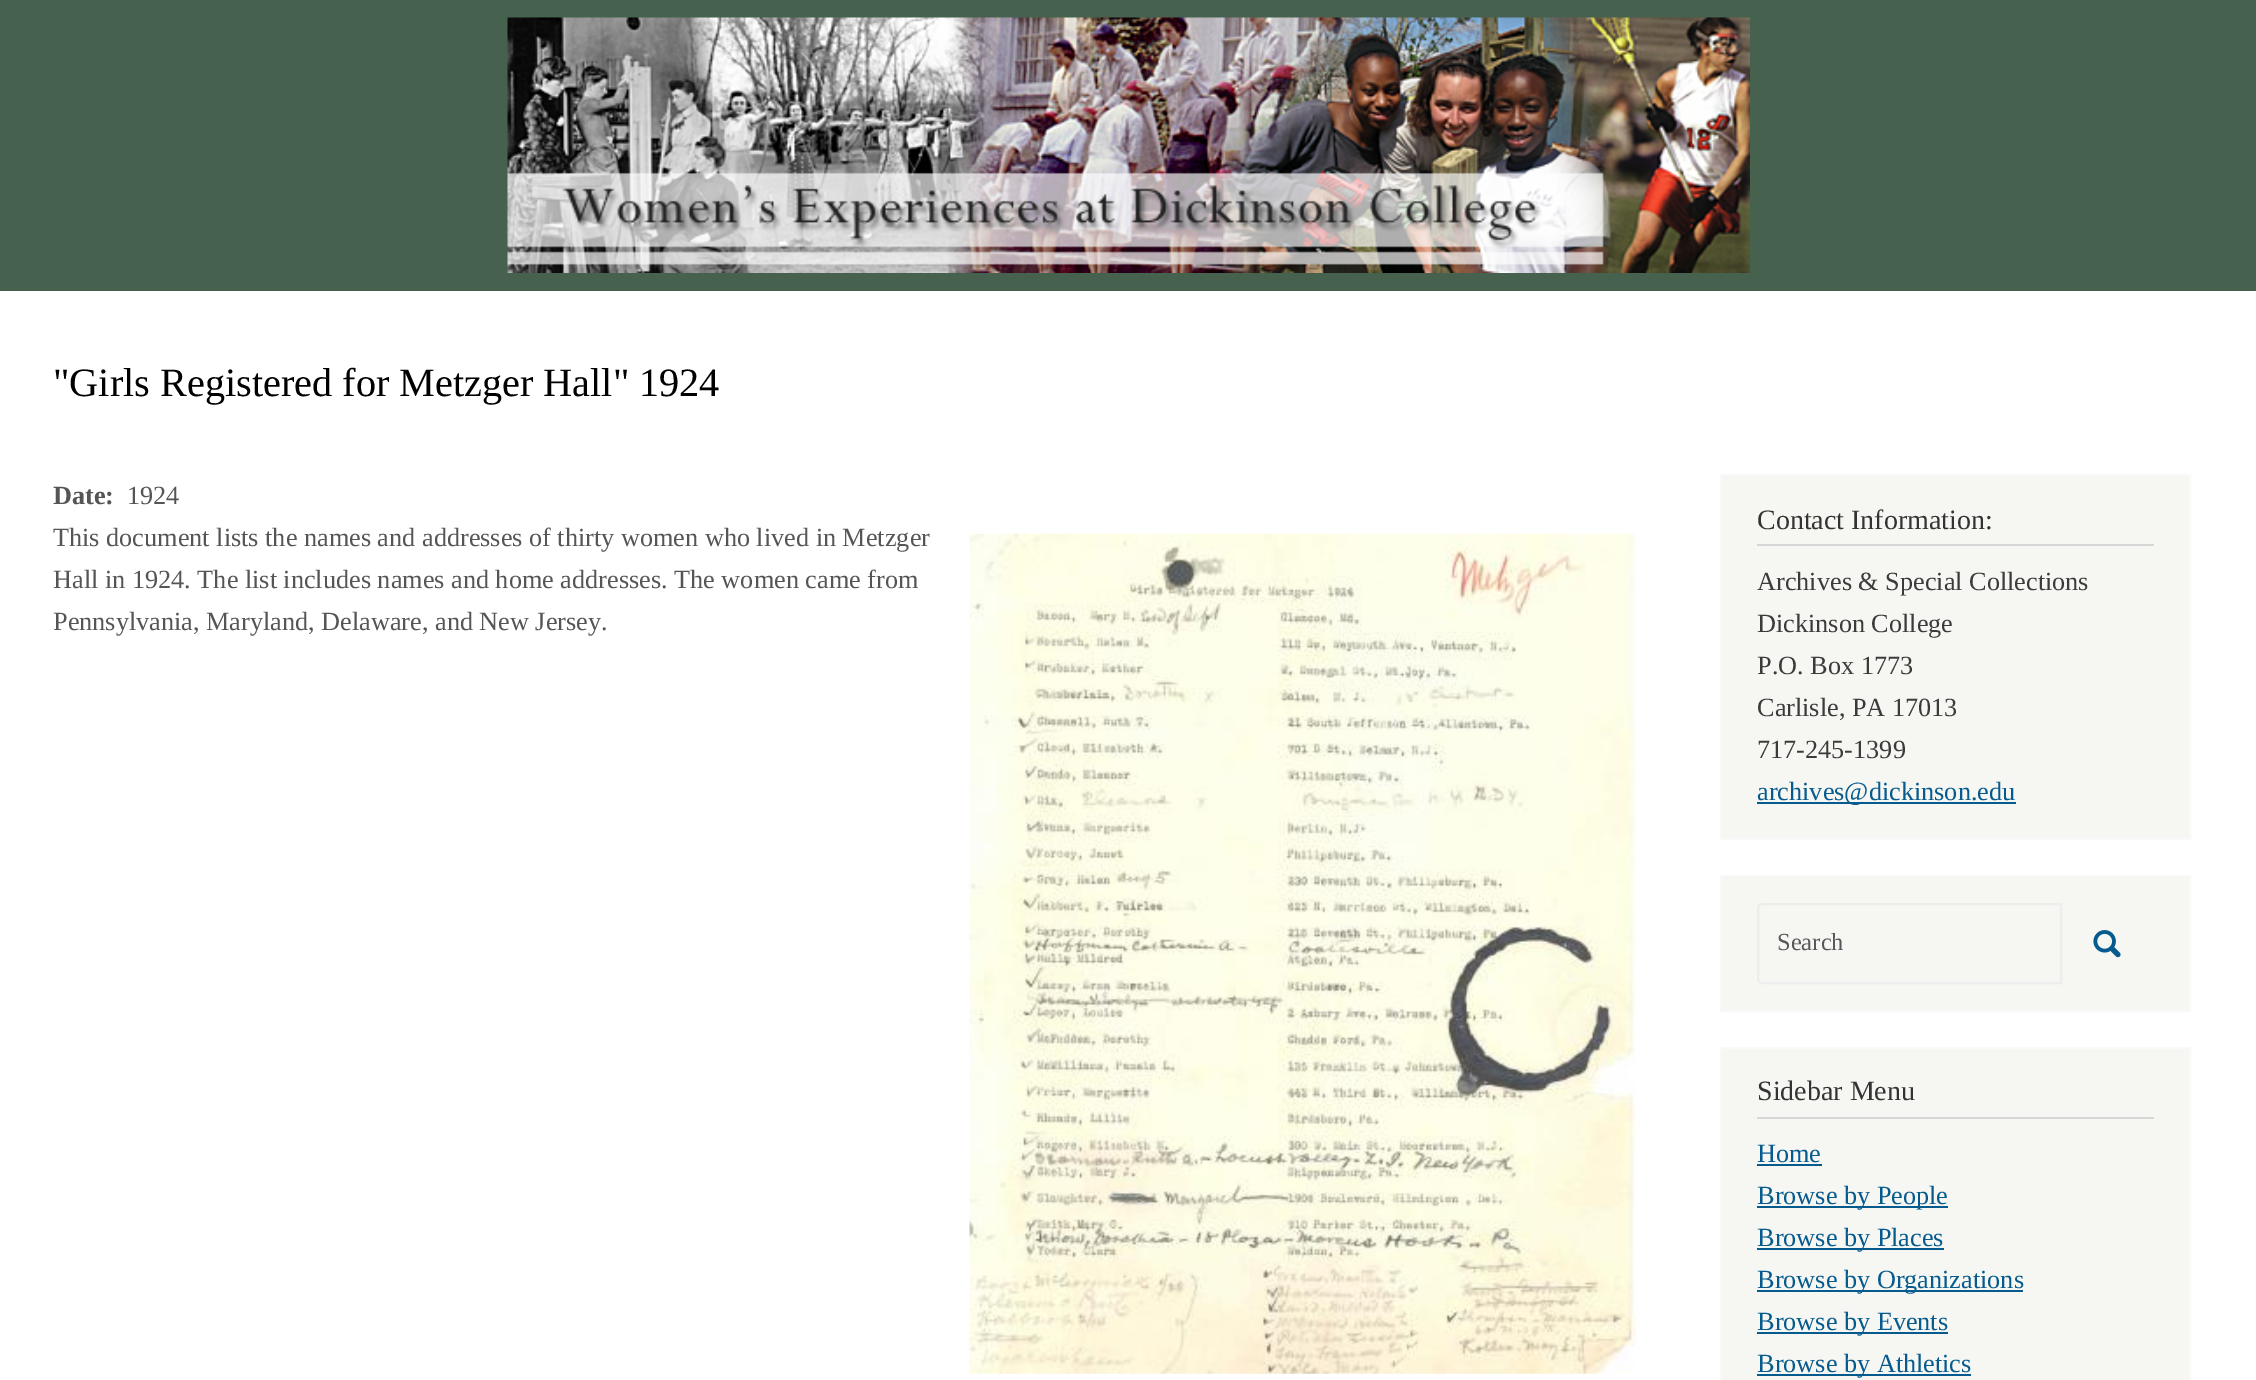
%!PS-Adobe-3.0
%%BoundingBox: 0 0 2256 1380
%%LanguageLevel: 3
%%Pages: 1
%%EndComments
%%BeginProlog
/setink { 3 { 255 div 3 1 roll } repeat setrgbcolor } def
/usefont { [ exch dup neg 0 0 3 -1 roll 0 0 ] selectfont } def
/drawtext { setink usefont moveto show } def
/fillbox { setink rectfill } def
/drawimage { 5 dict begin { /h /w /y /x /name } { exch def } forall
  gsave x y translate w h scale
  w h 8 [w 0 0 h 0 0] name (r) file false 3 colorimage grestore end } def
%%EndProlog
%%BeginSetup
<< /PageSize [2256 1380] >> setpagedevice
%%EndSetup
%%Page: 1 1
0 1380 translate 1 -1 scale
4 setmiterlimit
0 0 2256 1380 255 255 255 fillbox
0 0 2256 291 70 97 77 fillbox
(assets/img1.rgb) 507 17 1243 256 drawimage
("Girls Registered for Metzger Hall" 1924) 53 396 /LiberationSerif-Regular 40.25 0 0 0 drawtext
(Date:) 53 504 /LiberationSerif-Bold 26.25 85 85 85 drawtext
(1924) 127 504 /LiberationSerif-Regular 26.25 85 85 85 drawtext
(This document lists the names and addresses of thirty women who lived in Metzger) 53 546 /LiberationSerif-Regular 26.25 85 85 85 drawtext
(Hall in 1924. The list includes names and home addresses. The women came from) 53 588 /LiberationSerif-Regular 26.25 85 85 85 drawtext
(Pennsylvania, Maryland, Delaware, and New Jersey.) 53 630 /LiberationSerif-Regular 26.25 85 85 85 drawtext
(assets/img2.rgb) 969 533 667 841 drawimage
246 246 242 setink
1721 475 moveto 2190 475 lineto 2190 839 lineto 1721 839 lineto closepath gsave fill grestore
249 249 249 setink
2 setlinewidth
stroke
1757 544 397 2 214 214 214 fillbox
(Contact Information:) 1757 529 /LiberationSerif-Regular 28 51 51 51 drawtext
(Archives & Special Collections) 1757 590 /LiberationSerif-Regular 26.25 59 59 59 drawtext
(Dickinson College) 1757 632 /LiberationSerif-Regular 26.25 59 59 59 drawtext
(P.O. Box 1773) 1757 674 /LiberationSerif-Regular 26.25 59 59 59 drawtext
(Carlisle, PA 17013) 1757 716 /LiberationSerif-Regular 26.25 59 59 59 drawtext
(717-245-1399) 1757 758 /LiberationSerif-Regular 26.25 59 59 59 drawtext
1757 802 259 2 5 90 142 fillbox
(archives@dickinson.edu) 1757 800 /LiberationSerif-Regular 26.25 5 90 142 drawtext
246 246 242 setink
1721 876 moveto 2190 876 lineto 2190 1011 lineto 1721 1011 lineto closepath gsave fill grestore
249 249 249 setink
stroke
237 237 237 setink
1762 904 moveto 2061 904 lineto 2061 983 lineto 1762 983 lineto 1760 983 1758 981 1758 979 curveto 1758 908 lineto 1758 906 1760 904 1762 904 curveto closepath stroke
(Search) 1777 950 /LiberationSerif-Regular 24.5 86 89 91 drawtext
(assets/img3.rgb) 2093 930 28 28 drawimage
246 246 242 setink
1721 1048 moveto 2190 1048 lineto 2190 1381 lineto 1721 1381 lineto closepath gsave fill grestore
249 249 249 setink
stroke
1757 1117 397 2 214 214 214 fillbox
(Sidebar Menu) 1757 1100 /LiberationSerif-Regular 28 51 51 51 drawtext
(Home) 1757 1162 /LiberationSerif-Regular 26.25 5 90 142 drawtext
1757 1164 65 2 5 90 142 fillbox
1757 1206 191 2 5 90 142 fillbox
(Browse by People) 1757 1204 /LiberationSerif-Regular 26.25 5 90 142 drawtext
1757 1248 187 2 5 90 142 fillbox
(Browse by Places) 1757 1246 /LiberationSerif-Regular 26.25 5 90 142 drawtext
1757 1290 266 2 5 90 142 fillbox
(Browse by Organizations) 1757 1288 /LiberationSerif-Regular 26.25 5 90 142 drawtext
1757 1332 191 2 5 90 142 fillbox
(Browse by Events) 1757 1330 /LiberationSerif-Regular 26.25 5 90 142 drawtext
1757 1374 214 2 5 90 142 fillbox
(Browse by Athletics) 1757 1372 /LiberationSerif-Regular 26.25 5 90 142 drawtext
showpage
%%EOF
